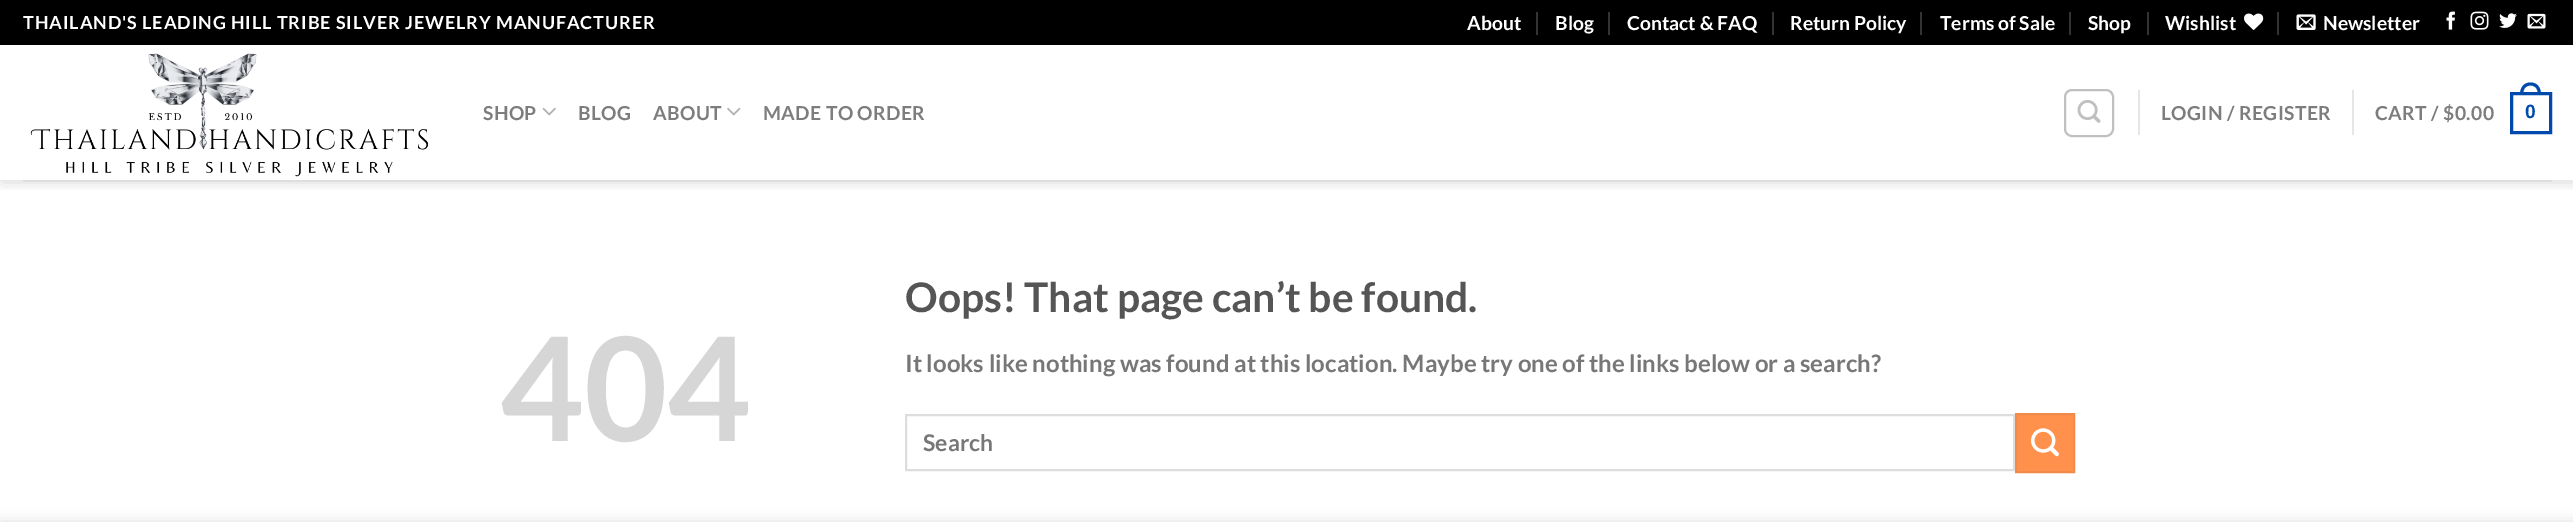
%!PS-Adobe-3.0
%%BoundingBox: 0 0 2573 522
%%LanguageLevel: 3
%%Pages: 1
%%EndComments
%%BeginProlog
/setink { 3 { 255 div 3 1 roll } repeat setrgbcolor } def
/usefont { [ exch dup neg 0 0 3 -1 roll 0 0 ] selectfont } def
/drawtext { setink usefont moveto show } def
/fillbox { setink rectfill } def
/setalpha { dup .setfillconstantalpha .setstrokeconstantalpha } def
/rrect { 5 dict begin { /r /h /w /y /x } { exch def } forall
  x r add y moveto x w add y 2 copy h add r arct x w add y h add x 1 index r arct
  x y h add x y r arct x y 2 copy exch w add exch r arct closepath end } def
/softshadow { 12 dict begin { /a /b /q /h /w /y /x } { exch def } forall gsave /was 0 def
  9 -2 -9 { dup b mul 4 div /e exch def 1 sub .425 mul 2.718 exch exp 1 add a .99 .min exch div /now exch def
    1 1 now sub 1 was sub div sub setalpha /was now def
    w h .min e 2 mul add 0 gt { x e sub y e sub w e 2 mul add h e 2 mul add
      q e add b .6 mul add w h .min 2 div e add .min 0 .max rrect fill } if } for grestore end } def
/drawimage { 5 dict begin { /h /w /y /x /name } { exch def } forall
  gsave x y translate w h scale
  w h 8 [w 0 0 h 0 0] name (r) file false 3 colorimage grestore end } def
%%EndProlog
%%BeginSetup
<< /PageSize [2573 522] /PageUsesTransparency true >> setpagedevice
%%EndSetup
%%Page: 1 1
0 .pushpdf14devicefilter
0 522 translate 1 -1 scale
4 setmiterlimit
0 0 2573 522 255 255 255 fillbox
gsave
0 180 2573 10 rectclip
0 0 0 setink
2 2 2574 180 0 7.5 0.15 softshadow
grestore
0 0 2573 45 0 0 0 fillbox
/Lato-Bold 18 usefont
255 255 255 setink
23 29 moveto 0.9 0 (THAILAND'S LEADING HILL TRIBE SILVER JEWELRY MANUFACTURER) ashow
(About) 1467 30 /Lato-Bold 19.25 255 255 255 drawtext
1536 12 2 23 51 51 51 fillbox
(Blog) 1555 30 /Lato-Bold 19.25 255 255 255 drawtext
1608 12 2 23 51 51 51 fillbox
(Contact & FAQ) 1627 30 /Lato-Bold 19.25 255 255 255 drawtext
1772 12 2 23 51 51 51 fillbox
(Return Policy) 1790 30 /Lato-Bold 19.25 255 255 255 drawtext
1920 12 2 23 51 51 51 fillbox
(Terms of Sale) 1940 30 /Lato-Bold 19.25 255 255 255 drawtext
2069 12 2 23 51 51 51 fillbox
(Shop) 2088 30 /Lato-Bold 19.25 255 255 255 drawtext
2147 12 2 23 51 51 51 fillbox
(Wishlist) 2165 30 /Lato-Bold 19.25 255 255 255 drawtext
(assets/img1.rgb) 2244 13 20 17 drawimage
2277 12 2 23 51 51 51 fillbox
(assets/img2.rgb) 2296 14 20 16 drawimage
(Newsletter) 2323 30 /Lato-Bold 19.25 255 255 255 drawtext
(assets/img3.rgb) 2446 11 9 19 drawimage
(assets/img4.rgb) 2470 11 19 19 drawimage
(assets/img5.rgb) 2499 13 18 15 drawimage
(assets/img6.rgb) 2527 13 19 16 drawimage
(assets/img7.rgb) 30 53 399 124 drawimage
125 125 125 setink
483 120 moveto 0.4 0 (SHOP) ashow
(assets/img8.rgb) 542 107 14 9 drawimage
578 120 moveto 0.4 0 (BLOG) ashow
653 120 moveto 0.4 0 (ABOUT) ashow
(assets/img9.rgb) 727 107 14 9 drawimage
763 120 moveto 0.4 0 (MADE TO ORDER) ashow
192 192 192 setink
2 setlinewidth
2065 90 48 46 7 rrect stroke
(assets/img10.rgb) 2077 99 24 24 drawimage
2138 90 2 45 230 230 230 fillbox
125 125 125 setink
2161 120 moveto 0.4 0 (LOGIN / REGISTER) ashow
2352 90 2 45 230 230 230 fillbox
125 125 125 setink
2375 120 moveto 0.4 0 (CART / $0.00) ashow
0 74 173 setink
3 setlinewidth
2511.5 93.5 39 39 rectstroke
2530.5 82.5 moveto 2537.5 82.5 2541 88 2541 94.5 curveto 2520 94.5 lineto 2520 88 2523.5 82.5 2530.5 82.5 curveto closepath 2530.5 85.5 moveto 2536 85.5 2538 90 2538 94.5 curveto 2523 94.5 lineto 2523 90 2525 85.5 2530.5 85.5 curveto closepath eofill
/LiberationSans-Bold 19.25 usefont
2525 118 moveto 0.4 0 (0) ashow
23 180 2529 2 222 222 222 fillbox
(404) 500 441 /Lato-Bold 144 214 214 214 drawtext
(Oops! That page can’t be found.) 905 312 /Lato-Bold 40.75 85 85 85 drawtext
(It looks like nothing was found at this location. Maybe try one of the links below or a search?) 905 372 /Lato-Bold 24 119 119 119 drawtext
221 221 221 setink
2 setlinewidth
906 415 1108 55 rectstroke
(Search) 923 451 /Lato-Bold 23 119 119 119 drawtext
255 145 77 setink
2016 414 moveto 2074 414 lineto 2074 472 lineto 2016 472 lineto closepath gsave fill grestore
242 138 73 setink
stroke
(assets/img11.rgb) 2031 428 28 29 drawimage
0 0 0 setink
0 522 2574 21 0 7 0.14 softshadow
.poppdf14devicefilter showpage
%%EOF
